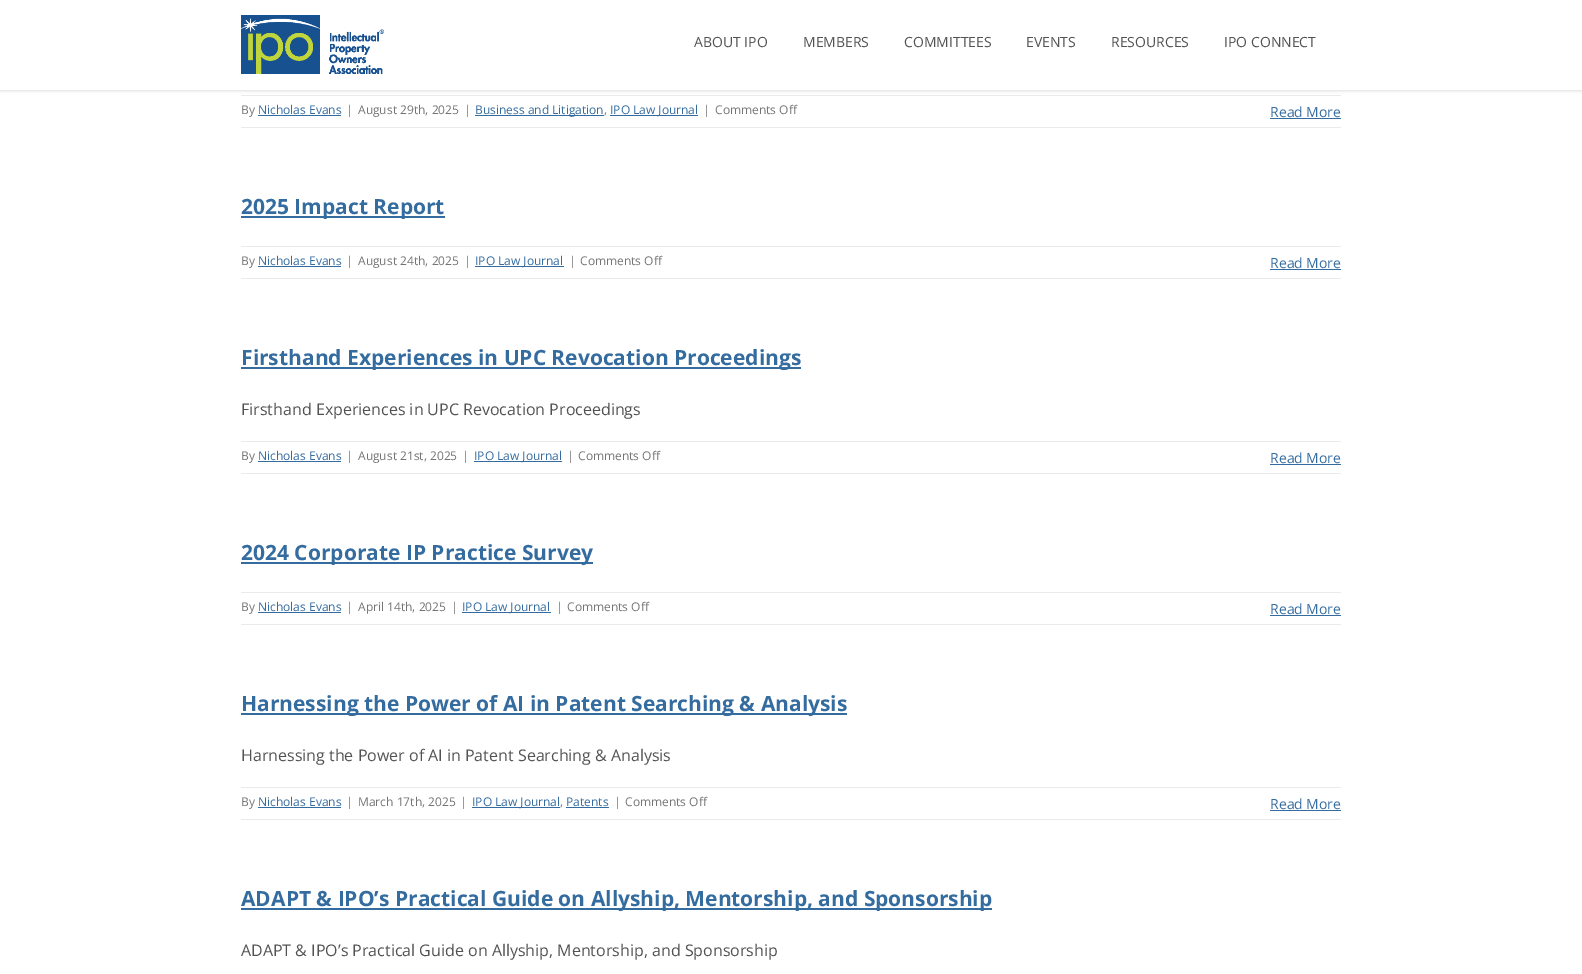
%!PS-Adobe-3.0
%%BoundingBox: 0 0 1582 974
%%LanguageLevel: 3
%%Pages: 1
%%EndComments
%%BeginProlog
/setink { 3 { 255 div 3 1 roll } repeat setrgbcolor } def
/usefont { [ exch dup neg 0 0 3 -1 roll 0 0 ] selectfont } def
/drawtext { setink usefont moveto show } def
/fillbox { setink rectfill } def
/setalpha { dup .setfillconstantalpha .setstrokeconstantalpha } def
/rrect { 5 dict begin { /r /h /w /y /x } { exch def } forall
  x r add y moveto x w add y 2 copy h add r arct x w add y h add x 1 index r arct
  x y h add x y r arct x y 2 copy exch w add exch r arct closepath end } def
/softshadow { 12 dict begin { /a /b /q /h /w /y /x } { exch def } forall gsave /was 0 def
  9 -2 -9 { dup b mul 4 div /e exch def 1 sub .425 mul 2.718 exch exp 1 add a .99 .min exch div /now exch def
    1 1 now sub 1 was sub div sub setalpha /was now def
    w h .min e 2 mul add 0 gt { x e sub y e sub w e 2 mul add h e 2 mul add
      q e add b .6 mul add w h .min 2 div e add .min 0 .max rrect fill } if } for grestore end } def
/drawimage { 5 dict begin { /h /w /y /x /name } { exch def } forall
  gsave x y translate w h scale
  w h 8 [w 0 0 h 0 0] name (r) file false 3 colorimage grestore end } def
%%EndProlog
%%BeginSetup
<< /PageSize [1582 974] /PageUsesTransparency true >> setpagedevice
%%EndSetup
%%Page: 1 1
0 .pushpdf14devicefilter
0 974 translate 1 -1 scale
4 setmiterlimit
0 0 1582 974 255 255 255 fillbox
241 95 1100 1 235 234 234 fillbox
0 0 0 setink
0 1 1582 90 0 1.5 0.12 softshadow
0 0 1582 90 255 255 255 fillbox
(assets/img1.rgb) 241 15 143 59 drawimage
(ABOUT IPO) 694 47 /OpenSans-Regular 14 82 82 82 drawtext
(MEMBERS) 803 47 /OpenSans-Regular 14 82 82 82 drawtext
(COMMITTEES) 904 47 /OpenSans-Regular 14 82 82 82 drawtext
(EVENTS) 1026 47 /OpenSans-Regular 14 82 82 82 drawtext
(RESOURCES) 1111 47 /OpenSans-Regular 14 82 82 82 drawtext
(IPO CONNECT) 1224 47 /OpenSans-Regular 14 82 82 82 drawtext
241 127 1100 1 235 234 234 fillbox
(By) 241 114 /OpenSans-Regular 12 116 116 116 drawtext
(Nicholas Evans) 258 114 /OpenSans-Regular 12 53 108 159 drawtext
258 115 83 1 53 108 159 fillbox
(|) 346 114 /OpenSans-Regular 12 116 116 116 drawtext
(August 29th, 2025) 358 114 /OpenSans-Regular 12 116 116 116 drawtext
(|) 464 114 /OpenSans-Regular 12 116 116 116 drawtext
475 115 129 1 53 108 159 fillbox
(Business and Litigation) 475 114 /OpenSans-Regular 12 53 108 159 drawtext
(,) 604 114 /OpenSans-Regular 12 116 116 116 drawtext
610 115 88 1 53 108 159 fillbox
(IPO Law Journal) 610 114 /OpenSans-Regular 12 53 108 159 drawtext
(|) 703 114 /OpenSans-Regular 12 116 116 116 drawtext
(Comments Off) 715 114 /OpenSans-Regular 12 116 116 116 drawtext
(Read More) 1270 117 /OpenSans-Regular 14 53 108 159 drawtext
1270 118 71 1 53 108 159 fillbox
241 216 204 2 53 108 159 fillbox
(2025 Impact Report) 241 214 /OpenSans-Bold 21 53 108 159 drawtext
241 246 1100 1 235 234 234 fillbox
241 278 1100 1 235 234 234 fillbox
(By) 241 265 /OpenSans-Regular 12 116 116 116 drawtext
(Nicholas Evans) 258 265 /OpenSans-Regular 12 53 108 159 drawtext
258 266 83 1 53 108 159 fillbox
(|) 346 265 /OpenSans-Regular 12 116 116 116 drawtext
(August 24th, 2025) 358 265 /OpenSans-Regular 12 116 116 116 drawtext
(|) 464 265 /OpenSans-Regular 12 116 116 116 drawtext
475 266 89 1 53 108 159 fillbox
(IPO Law Journal) 475 265 /OpenSans-Regular 12 53 108 159 drawtext
(|) 569 265 /OpenSans-Regular 12 116 116 116 drawtext
(Comments Off) 580 265 /OpenSans-Regular 12 116 116 116 drawtext
(Read More) 1270 268 /OpenSans-Regular 14 53 108 159 drawtext
1270 269 71 1 53 108 159 fillbox
241 367 560 2 53 108 159 fillbox
(Firsthand Experiences in UPC Revocation Proceedings) 241 365 /OpenSans-Bold 21 53 108 159 drawtext
(Firsthand Experiences in UPC Revocation Proceedings) 241 415 /OpenSans-Regular 16 82 82 82 drawtext
241 441 1100 1 235 234 234 fillbox
241 473 1100 1 235 234 234 fillbox
(By) 241 460 /OpenSans-Regular 12 116 116 116 drawtext
(Nicholas Evans) 258 460 /OpenSans-Regular 12 53 108 159 drawtext
258 461 83 1 53 108 159 fillbox
(|) 346 460 /OpenSans-Regular 12 116 116 116 drawtext
(August 21st, 2025) 358 460 /OpenSans-Regular 12 116 116 116 drawtext
(|) 462 460 /OpenSans-Regular 12 116 116 116 drawtext
474 461 88 1 53 108 159 fillbox
(IPO Law Journal) 474 460 /OpenSans-Regular 12 53 108 159 drawtext
(|) 567 460 /OpenSans-Regular 12 116 116 116 drawtext
(Comments Off) 578 460 /OpenSans-Regular 12 116 116 116 drawtext
(Read More) 1270 463 /OpenSans-Regular 14 53 108 159 drawtext
1270 464 71 1 53 108 159 fillbox
241 562 352 2 53 108 159 fillbox
(2024 Corporate IP Practice Survey) 241 560 /OpenSans-Bold 21 53 108 159 drawtext
241 592 1100 1 235 234 234 fillbox
241 624 1100 1 235 234 234 fillbox
(By) 241 611 /OpenSans-Regular 12 116 116 116 drawtext
(Nicholas Evans) 258 611 /OpenSans-Regular 12 53 108 159 drawtext
258 612 83 1 53 108 159 fillbox
(|) 346 611 /OpenSans-Regular 12 116 116 116 drawtext
(April 14th, 2025) 358 611 /OpenSans-Regular 12 116 116 116 drawtext
(|) 451 611 /OpenSans-Regular 12 116 116 116 drawtext
462 612 89 1 53 108 159 fillbox
(IPO Law Journal) 462 611 /OpenSans-Regular 12 53 108 159 drawtext
(|) 556 611 /OpenSans-Regular 12 116 116 116 drawtext
(Comments Off) 567 611 /OpenSans-Regular 12 116 116 116 drawtext
(Read More) 1270 614 /OpenSans-Regular 14 53 108 159 drawtext
1270 615 71 1 53 108 159 fillbox
241 713 606 2 53 108 159 fillbox
(Harnessing the Power of AI in Patent Searching & Analysis) 241 711 /OpenSans-Bold 21 53 108 159 drawtext
(Harnessing the Power of AI in Patent Searching & Analysis) 241 761 /OpenSans-Regular 16 82 82 82 drawtext
241 787 1100 1 235 234 234 fillbox
241 819 1100 1 235 234 234 fillbox
(By) 241 806 /OpenSans-Regular 12 116 116 116 drawtext
(Nicholas Evans) 258 806 /OpenSans-Regular 12 53 108 159 drawtext
258 807 83 1 53 108 159 fillbox
(|) 346 806 /OpenSans-Regular 12 116 116 116 drawtext
(March 17th, 2025) 358 806 /OpenSans-Regular 12 116 116 116 drawtext
(|) 460 806 /OpenSans-Regular 12 116 116 116 drawtext
472 807 88 1 53 108 159 fillbox
(IPO Law Journal) 472 806 /OpenSans-Regular 12 53 108 159 drawtext
(,) 560 806 /OpenSans-Regular 12 116 116 116 drawtext
(Patents) 566 806 /OpenSans-Regular 12 53 108 159 drawtext
566 807 43 1 53 108 159 fillbox
(|) 614 806 /OpenSans-Regular 12 116 116 116 drawtext
(Comments Off) 625 806 /OpenSans-Regular 12 116 116 116 drawtext
(Read More) 1270 809 /OpenSans-Regular 14 53 108 159 drawtext
1270 810 71 1 53 108 159 fillbox
241 908 751 2 53 108 159 fillbox
(ADAPT & IPO’s Practical Guide on Allyship, Mentorship, and Sponsorship) 241 906 /OpenSans-Bold 21 53 108 159 drawtext
(ADAPT & IPO’s Practical Guide on Allyship, Mentorship, and Sponsorship) 241 956 /OpenSans-Regular 16 82 82 82 drawtext
.poppdf14devicefilter showpage
%%EOF
